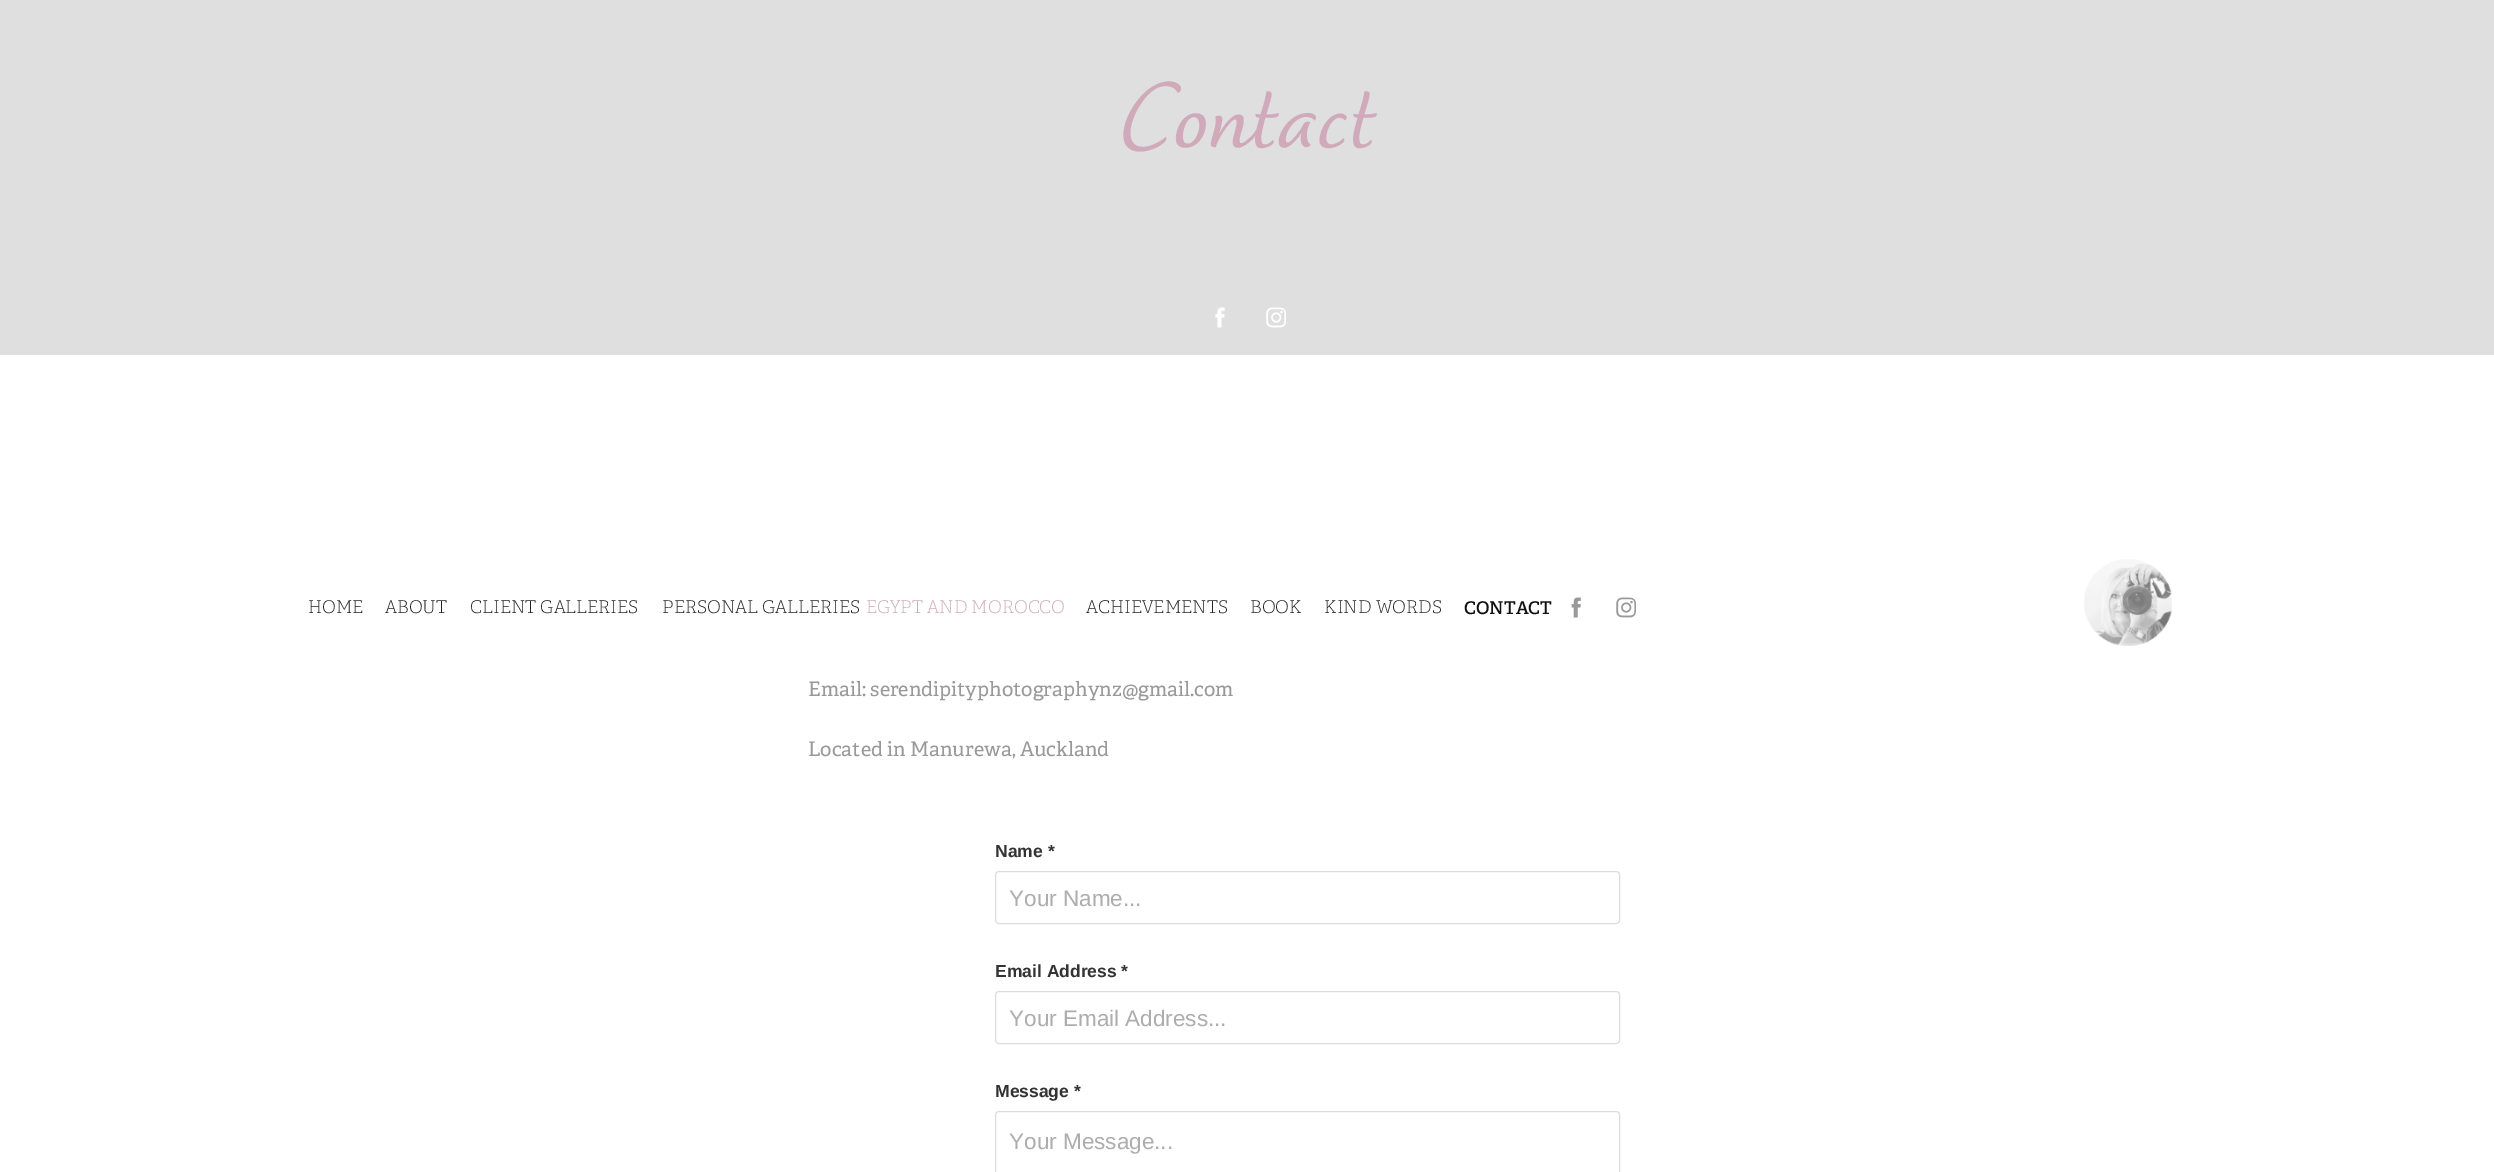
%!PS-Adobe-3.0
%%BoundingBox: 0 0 2494 1172
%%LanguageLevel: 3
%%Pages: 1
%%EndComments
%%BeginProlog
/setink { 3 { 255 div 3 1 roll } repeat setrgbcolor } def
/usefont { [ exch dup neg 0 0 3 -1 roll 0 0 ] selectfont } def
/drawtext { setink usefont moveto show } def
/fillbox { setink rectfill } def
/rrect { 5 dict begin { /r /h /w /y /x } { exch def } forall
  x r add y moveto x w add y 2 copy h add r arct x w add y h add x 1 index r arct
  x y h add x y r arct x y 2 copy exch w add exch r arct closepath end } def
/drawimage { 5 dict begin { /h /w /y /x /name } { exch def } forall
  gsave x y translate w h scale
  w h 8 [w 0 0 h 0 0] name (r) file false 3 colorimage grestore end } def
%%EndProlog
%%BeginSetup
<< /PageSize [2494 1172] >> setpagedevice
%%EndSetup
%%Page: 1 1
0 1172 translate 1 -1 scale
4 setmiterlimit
0 0 2494 1172 255 255 255 fillbox
0 0 2494 355 223 223 223 fillbox
(Contact) 1121 146 /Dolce-Medium 112.5 208 170 185 drawtext
(assets/img1.rgb) 1215 307 10 21 drawimage
(assets/img2.rgb) 1266 307 20 21 drawimage
(HOME) 308 613 /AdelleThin-Thin 17.5 34 34 34 drawtext
(ABOUT) 385 613 /AdelleThin-Thin 17.5 34 34 34 drawtext
(CLIENT GALLERIES) 470 613 /AdelleThin-Thin 17.5 34 34 34 drawtext
(PERSONAL GALLERIES) 662 613 /AdelleThin-Thin 17.5 34 34 34 drawtext
(EGYPT AND MOROCCO) 866 613 /AdelleThin-Thin 17.5 208 170 185 drawtext
(ACHIEVEMENTS) 1086 613 /AdelleThin-Thin 17.5 34 34 34 drawtext
(BOOK) 1250 613 /AdelleThin-Thin 17.5 34 34 34 drawtext
(KIND WORDS) 1324 613 /AdelleThin-Thin 17.5 34 34 34 drawtext
(CONTACT) 1464 614 /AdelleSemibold-SemiBold 17.5 17 17 17 drawtext
(assets/img3.rgb) 1571 597 10 21 drawimage
(assets/img4.rgb) 1616 597 20 21 drawimage
(assets/img5.rgb) 2084 559 88 87 drawimage
(Email: serendipityphotographynz@gmail.com) 808 696 /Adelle-Regular 20 153 153 153 drawtext
(Located in Manurewa, Auckland) 808 756 /Adelle-Regular 20 153 153 153 drawtext
(Name *) 995 857 /LiberationSans-Bold 17.5 51 51 51 drawtext
221 221 221 setink
995.5 871.5 624 52 3.5 rrect stroke
(Your Name...) 1009 906 /LiberationSans-Regular 22.5 173 173 173 drawtext
(Email Address *) 995 977 /LiberationSans-Bold 17.5 51 51 51 drawtext
221 221 221 setink
995.5 991.5 624 52 3.5 rrect stroke
(Your Email Address...) 1009 1026 /LiberationSans-Regular 22.5 173 173 173 drawtext
(Message *) 995 1097 /LiberationSans-Bold 17.5 51 51 51 drawtext
221 221 221 setink
995.5 1111.5 624 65 3.5 rrect stroke
(Your Message...) 1009 1149 /LiberationSans-Regular 22.5 173 173 173 drawtext
showpage
%%EOF
